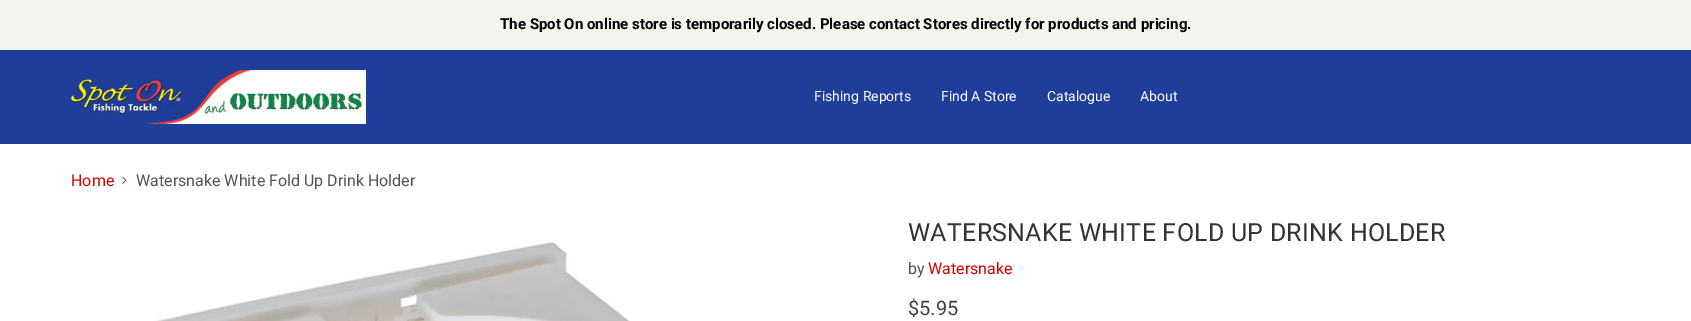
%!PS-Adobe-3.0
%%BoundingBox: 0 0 1691 321
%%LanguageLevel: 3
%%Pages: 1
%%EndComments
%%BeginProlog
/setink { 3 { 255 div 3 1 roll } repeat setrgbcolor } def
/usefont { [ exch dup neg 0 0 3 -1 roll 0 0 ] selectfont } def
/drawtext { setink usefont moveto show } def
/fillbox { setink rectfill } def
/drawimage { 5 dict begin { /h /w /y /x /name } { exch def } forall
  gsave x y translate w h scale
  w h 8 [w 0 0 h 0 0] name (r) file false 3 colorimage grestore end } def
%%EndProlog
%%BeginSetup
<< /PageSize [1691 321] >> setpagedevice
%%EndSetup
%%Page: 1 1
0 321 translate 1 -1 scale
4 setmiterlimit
0 0 1691 321 255 255 255 fillbox
0 0 1691 50 245 243 237 fillbox
(The Spot On online store is temporarily closed. Please contact Stores directly for products and pricing.) 500 29 /Roboto-Bold 15 0 0 0 drawtext
0 50 1691 94 31 61 154 fillbox
(assets/img1.rgb) 67 70 299 54 drawimage
(Fishing Reports) 814 101 /Roboto-Regular 14 255 255 255 drawtext
(Find A Store) 941 101 /Roboto-Regular 14 255 255 255 drawtext
(Catalogue) 1047 101 /Roboto-Regular 14 255 255 255 drawtext
(About) 1140 101 /Roboto-Regular 14 255 255 255 drawtext
(Home) 71 186 /Roboto-Regular 16 214 0 0 drawtext
(assets/img2.rgb) 122 176 5 8 drawimage
(Watersnake White Fold Up Drink Holder) 136 186 /Roboto-Regular 16 83 83 83 drawtext
(assets/img3.rgb) 155 241 475 80 drawimage
/Roboto-Regular 25 usefont
51 51 51 setink
908 241 moveto 0.25 0 (WATERSNAKE WHITE FOLD UP DRINK HOLDER) ashow
(by) 908 274 /Roboto-Regular 16 83 83 83 drawtext
(Watersnake) 928 274 /Roboto-Regular 16 214 0 0 drawtext
($5.95) 908 315 /Roboto-Regular 20 65 65 65 drawtext
showpage
%%EOF
